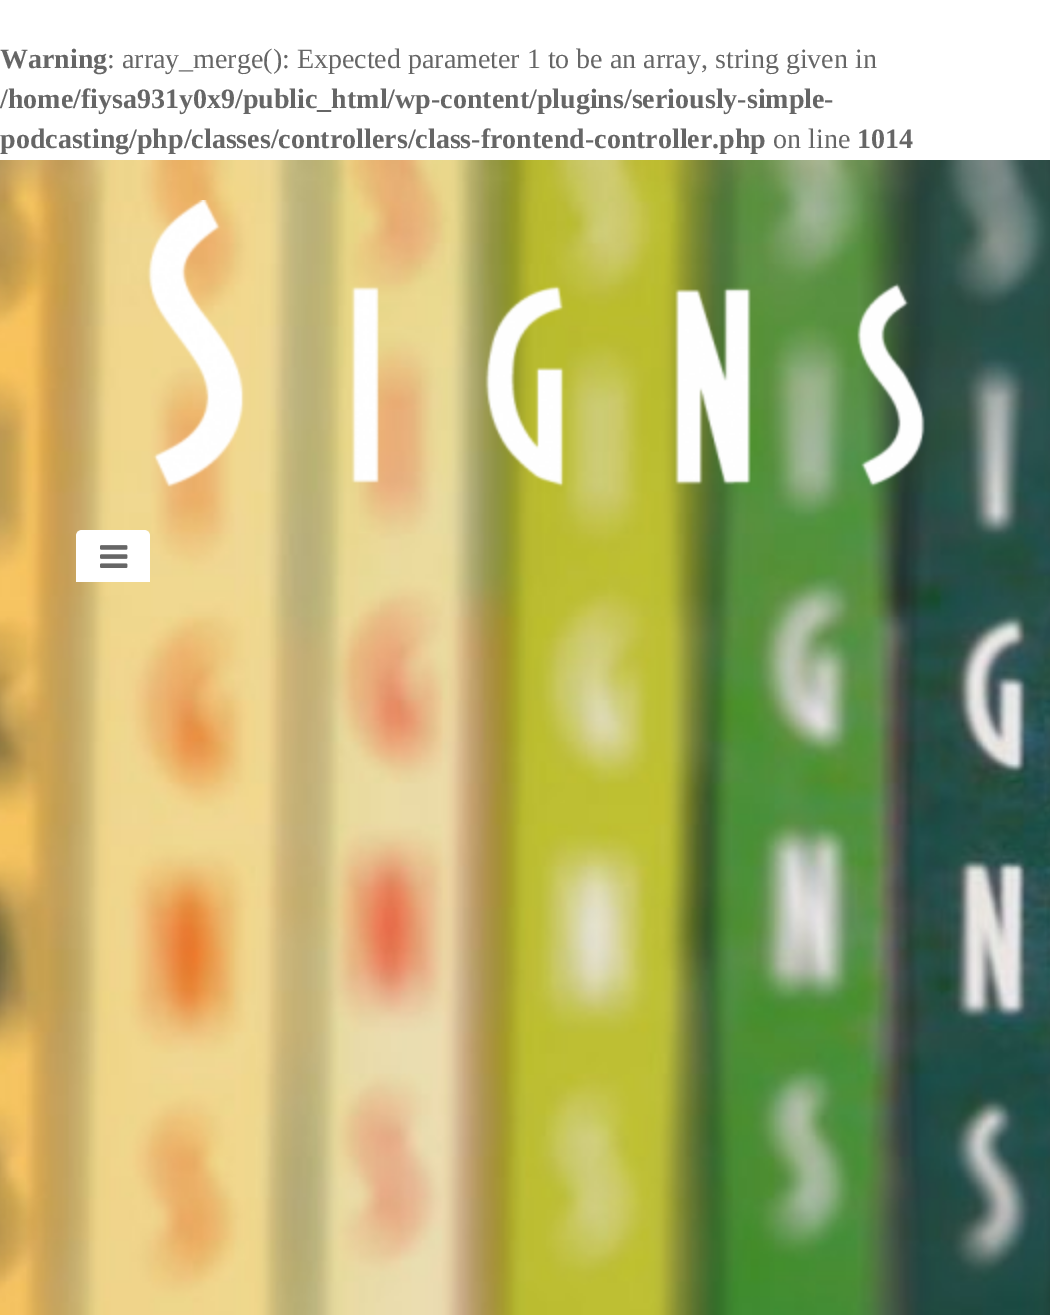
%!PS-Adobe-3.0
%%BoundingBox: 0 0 1050 1315
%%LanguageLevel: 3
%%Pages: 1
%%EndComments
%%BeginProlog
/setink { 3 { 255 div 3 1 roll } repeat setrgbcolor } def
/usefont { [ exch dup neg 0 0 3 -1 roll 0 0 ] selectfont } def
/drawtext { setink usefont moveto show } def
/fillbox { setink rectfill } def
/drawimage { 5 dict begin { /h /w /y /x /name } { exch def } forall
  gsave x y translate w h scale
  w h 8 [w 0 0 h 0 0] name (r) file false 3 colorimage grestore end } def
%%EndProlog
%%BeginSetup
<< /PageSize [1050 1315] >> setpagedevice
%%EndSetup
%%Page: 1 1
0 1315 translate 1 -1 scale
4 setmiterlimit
0 0 1050 1315 255 255 255 fillbox
(Warning) 0 68 /LiberationSerif-Bold 28 102 102 102 drawtext
(: array_merge\(\): Expected parameter 1 to be an array, string given in) 107 68 /LiberationSerif-Regular 28 102 102 102 drawtext
(/home/fiysa931y0x9/public_html/wp-content/plugins/seriously-simple-) 0 108 /LiberationSerif-Bold 28 102 102 102 drawtext
(podcasting/php/classes/controllers/class-frontend-controller.php) 0 148 /LiberationSerif-Bold 28 102 102 102 drawtext
(on line) 773 148 /LiberationSerif-Regular 28 102 102 102 drawtext
(1014) 857 148 /LiberationSerif-Bold 28 102 102 102 drawtext
(assets/img1.rgb) 0 160 1050 1155 drawimage
(assets/img2.rgb) 147 200 778 287 drawimage
255 255 255 setink
82 530 moveto 144 530 lineto 147.5 530 150 532.5 150 536 curveto 150 582 lineto 76 582 lineto 76 536 lineto 76 532.5 78.5 530 82 530 curveto closepath fill
(assets/img3.rgb) 100 545 28 23 drawimage
showpage
%%EOF
